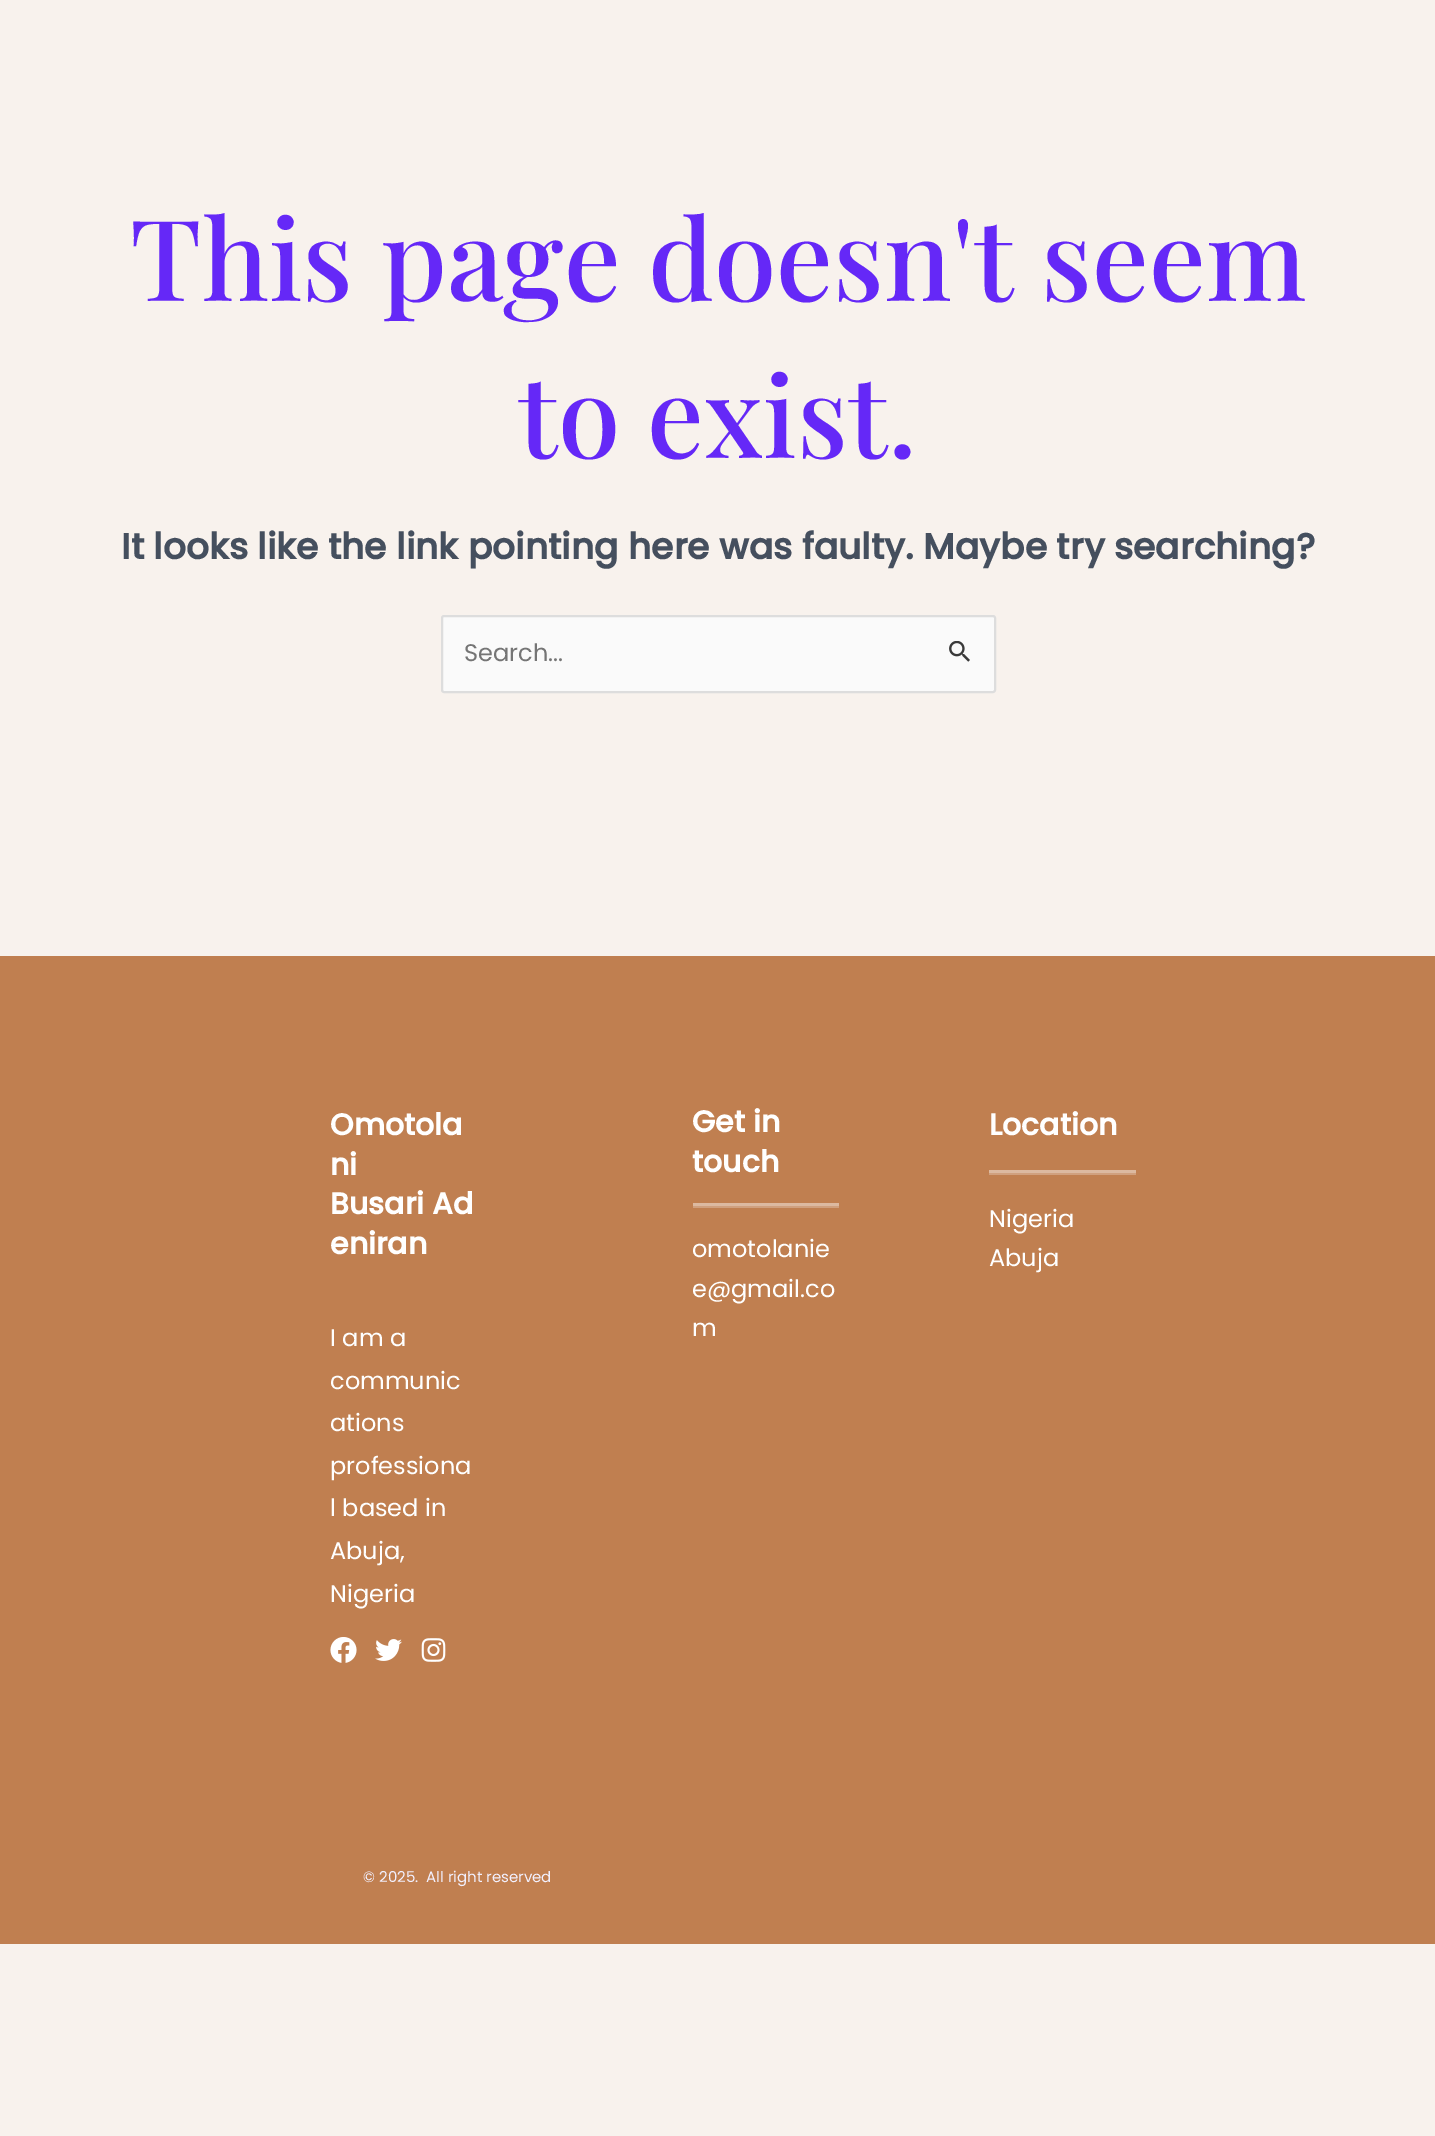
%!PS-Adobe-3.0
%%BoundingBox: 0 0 1435 2136
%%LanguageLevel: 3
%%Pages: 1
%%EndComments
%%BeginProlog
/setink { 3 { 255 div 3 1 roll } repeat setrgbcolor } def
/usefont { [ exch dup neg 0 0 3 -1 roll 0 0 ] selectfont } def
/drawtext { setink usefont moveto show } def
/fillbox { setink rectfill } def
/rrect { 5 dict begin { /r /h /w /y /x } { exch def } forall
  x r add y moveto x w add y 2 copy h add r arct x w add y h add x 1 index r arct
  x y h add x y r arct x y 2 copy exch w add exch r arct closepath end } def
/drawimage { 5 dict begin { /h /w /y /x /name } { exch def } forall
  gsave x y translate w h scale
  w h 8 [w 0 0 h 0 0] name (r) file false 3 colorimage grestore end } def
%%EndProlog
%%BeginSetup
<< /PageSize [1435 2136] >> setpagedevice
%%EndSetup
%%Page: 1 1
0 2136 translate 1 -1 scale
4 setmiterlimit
0 0 1435 2136 248 242 237 fillbox
(This page doesn't seem) 130 301 /PlayfairDisplay-Medium 112.5 101 40 247 drawtext
(to exist.) 518 458 /PlayfairDisplay-Medium 112.5 101 40 247 drawtext
(It looks like the link pointing here was faulty. Maybe try searching?) 121 559 /Poppins-Bold 36 69 79 94 drawtext
250 250 250 setink
442 616 553 76 2 rrect gsave fill grestore
221 221 221 setink
2 setlinewidth
stroke
(Search...) 464 661 /Poppins-Regular 24 117 117 117 drawtext
(assets/img1.rgb) 949 641 21 21 drawimage
0 956 1435 988 192 127 80 fillbox
(Omotola) 330 1135 /Poppins-Bold 30 255 255 255 drawtext
(ni) 330 1175 /Poppins-Bold 30 255 255 255 drawtext
(Busari Ad) 330 1214 /Poppins-Bold 30 255 255 255 drawtext
(eniran) 330 1254 /Poppins-Bold 30 255 255 255 drawtext
(I am a) 330 1346 /Poppins-Regular 24 255 255 255 drawtext
(communic) 330 1389 /Poppins-Regular 24 255 255 255 drawtext
(ations) 330 1431 /Poppins-Regular 24 255 255 255 drawtext
(professiona) 330 1474 /Poppins-Regular 24 255 255 255 drawtext
(l based in) 330 1516 /Poppins-Regular 24 255 255 255 drawtext
(Abuja,) 330 1559 /Poppins-Regular 24 255 255 255 drawtext
(Nigeria) 330 1602 /Poppins-Regular 24 255 255 255 drawtext
(assets/img2.rgb) 330 1637 27 26 drawimage
(assets/img3.rgb) 375 1639 27 22 drawimage
(assets/img4.rgb) 421 1638 25 24 drawimage
(Get in) 692 1132 /Poppins-Bold 30 255 255 255 drawtext
(touch) 692 1172 /Poppins-Bold 30 255 255 255 drawtext
693 1206 146 2 208 160 126 fillbox
693 1203 146 3 220 185 160 fillbox
(omotolanie) 692 1257 /Poppins-Regular 24 255 255 255 drawtext
(e@gmail.co) 692 1297 /Poppins-Regular 24 255 255 255 drawtext
(m) 692 1336 /Poppins-Regular 24 255 255 255 drawtext
(Location) 989 1135 /Poppins-Bold 30 255 255 255 drawtext
989 1173 147 2 208 160 126 fillbox
989 1170 147 3 220 185 160 fillbox
(Nigeria) 989 1227 /Poppins-Regular 24 255 255 255 drawtext
(Abuja) 989 1266 /Poppins-Regular 24 255 255 255 drawtext
(© 2025.  All right reserved) 363 1882 /Poppins-Regular 15 242 240 254 drawtext
showpage
%%EOF
